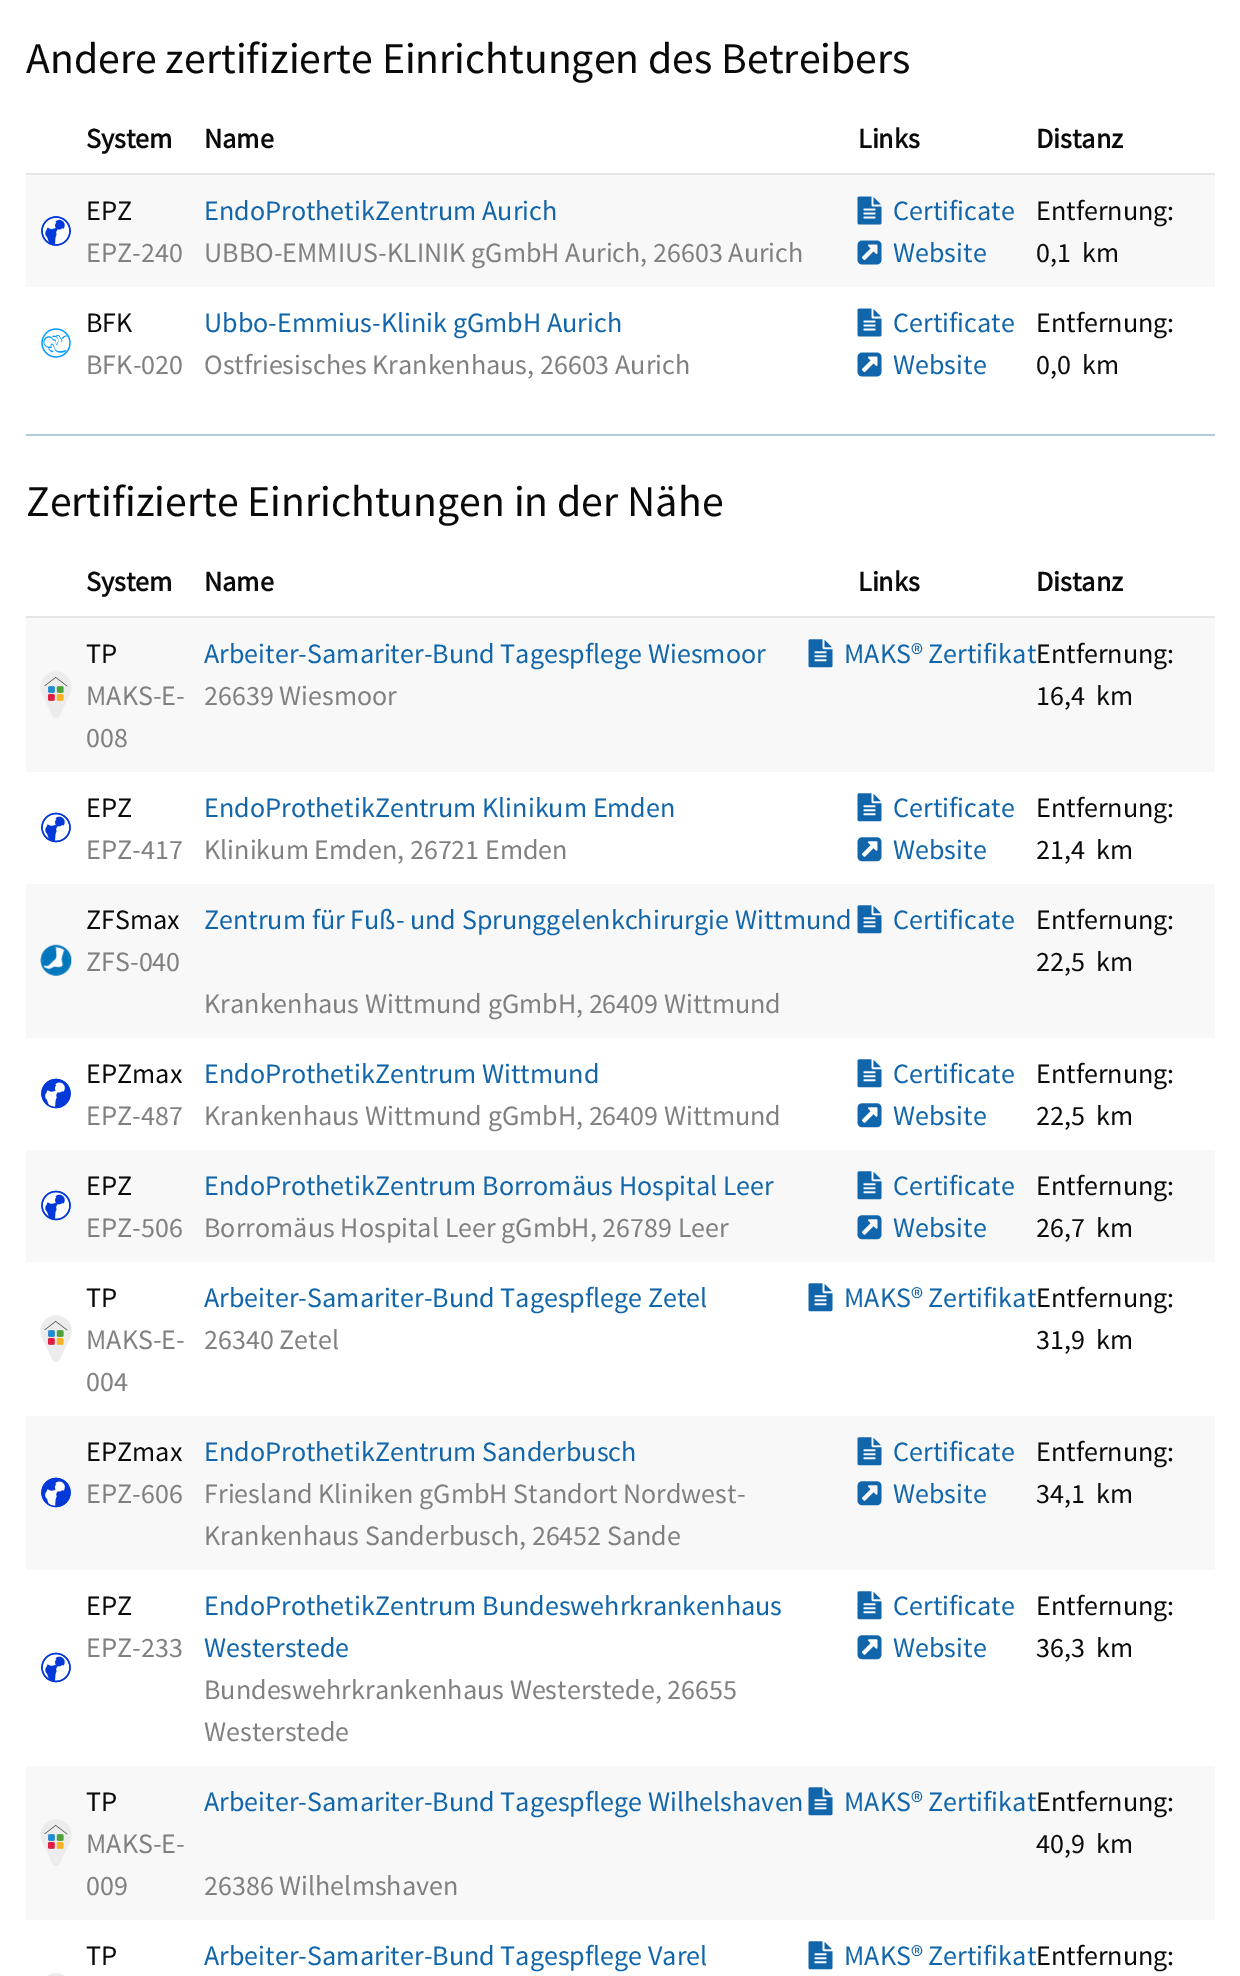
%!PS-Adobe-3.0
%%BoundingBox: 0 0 1240 1976
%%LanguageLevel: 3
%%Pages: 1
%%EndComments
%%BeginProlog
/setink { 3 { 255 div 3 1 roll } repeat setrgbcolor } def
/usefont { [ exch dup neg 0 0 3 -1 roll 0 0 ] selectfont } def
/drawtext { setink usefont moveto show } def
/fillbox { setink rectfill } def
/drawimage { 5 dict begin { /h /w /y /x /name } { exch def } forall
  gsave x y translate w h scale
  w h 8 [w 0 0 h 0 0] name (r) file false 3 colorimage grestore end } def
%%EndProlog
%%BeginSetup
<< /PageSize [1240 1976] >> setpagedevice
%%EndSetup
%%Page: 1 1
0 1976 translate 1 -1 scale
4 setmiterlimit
0 0 1240 1976 255 255 255 fillbox
(Andere zertifizierte Einrichtungen des Betreibers) 26 73 /SourceSansPro-Regular 43.75 10 10 10 drawtext
26 173 1189 2 230 230 230 fillbox
(System) 86 148 /SourceSansPro-Bold 28 10 10 10 drawtext
(Name) 204 148 /SourceSansPro-Bold 28 10 10 10 drawtext
(Links) 858 148 /SourceSansPro-Bold 28 10 10 10 drawtext
(Distanz) 1036 148 /SourceSansPro-Bold 28 10 10 10 drawtext
26 175 1189 112 248 248 248 fillbox
(assets/img1.rgb) 41 216 30 30 drawimage
(EPZ) 86 220 /SourceSansPro-Regular 28 10 10 10 drawtext
(EPZ-240) 86 262 /SourceSansPro-Regular 28 128 128 128 drawtext
(EndoProthetikZentrum Aurich) 204 220 /SourceSansPro-Regular 28 17 101 170 drawtext
(UBBO-EMMIUS-KLINIK gGmbH Aurich, 26603 Aurich) 204 262 /SourceSansPro-Regular 28 128 128 128 drawtext
(assets/img2.rgb) 857 196 25 29 drawimage
(Certificate) 893 220 /SourceSansPro-Regular 28 17 101 170 drawtext
(assets/img3.rgb) 857 240 25 25 drawimage
(Website) 893 262 /SourceSansPro-Regular 28 17 101 170 drawtext
(Entfernung:) 1036 220 /SourceSansPro-Regular 28 10 10 10 drawtext
(0,1) 1036 262 /SourceSansPro-Regular 28 10 10 10 drawtext
(km) 1082 262 /SourceSansPro-Regular 28 10 10 10 drawtext
(assets/img4.rgb) 41 328 30 30 drawimage
(BFK) 86 332 /SourceSansPro-Regular 28 10 10 10 drawtext
(BFK-020) 86 374 /SourceSansPro-Regular 28 128 128 128 drawtext
(Ubbo-Emmius-Klinik gGmbH Aurich) 204 332 /SourceSansPro-Regular 28 17 101 170 drawtext
(Ostfriesisches Krankenhaus, 26603 Aurich) 204 374 /SourceSansPro-Regular 28 128 128 128 drawtext
(assets/img5.rgb) 857 308 25 29 drawimage
(Certificate) 893 332 /SourceSansPro-Regular 28 17 101 170 drawtext
(assets/img6.rgb) 857 352 25 25 drawimage
(Website) 893 374 /SourceSansPro-Regular 28 17 101 170 drawtext
(Entfernung:) 1036 332 /SourceSansPro-Regular 28 10 10 10 drawtext
(0,0) 1036 374 /SourceSansPro-Regular 28 10 10 10 drawtext
(km) 1082 374 /SourceSansPro-Regular 28 10 10 10 drawtext
26 434 1189 2 176 203 222 fillbox
(Zertifizierte Einrichtungen in der Nähe) 26 516 /SourceSansPro-Regular 43.75 10 10 10 drawtext
26 616 1189 2 230 230 230 fillbox
(System) 86 591 /SourceSansPro-Bold 28 10 10 10 drawtext
(Name) 204 591 /SourceSansPro-Bold 28 10 10 10 drawtext
(Links) 858 591 /SourceSansPro-Bold 28 10 10 10 drawtext
(Distanz) 1036 591 /SourceSansPro-Bold 28 10 10 10 drawtext
26 618 1189 154 248 248 248 fillbox
(assets/img7.rgb) 40 671 32 47 drawimage
(TP) 86 663 /SourceSansPro-Regular 28 10 10 10 drawtext
(MAKS-E-) 86 705 /SourceSansPro-Regular 28 128 128 128 drawtext
(008) 86 747 /SourceSansPro-Regular 28 128 128 128 drawtext
(Arbeiter-Samariter-Bund Tagespflege Wiesmoor) 204 663 /SourceSansPro-Regular 28 17 101 170 drawtext
(26639 Wiesmoor) 204 705 /SourceSansPro-Regular 28 128 128 128 drawtext
(assets/img8.rgb) 808 639 25 29 drawimage
(MAKS® Zertifikat) 844 663 /SourceSansPro-Regular 28 17 101 170 drawtext
(Entfernung:) 1036 663 /SourceSansPro-Regular 28 10 10 10 drawtext
(16,4) 1036 705 /SourceSansPro-Regular 28 10 10 10 drawtext
(km) 1096 705 /SourceSansPro-Regular 28 10 10 10 drawtext
(assets/img9.rgb) 41 812 30 31 drawimage
(EPZ) 86 817 /SourceSansPro-Regular 28 10 10 10 drawtext
(EPZ-417) 86 859 /SourceSansPro-Regular 28 128 128 128 drawtext
(EndoProthetikZentrum Klinikum Emden) 204 817 /SourceSansPro-Regular 28 17 101 170 drawtext
(Klinikum Emden, 26721 Emden) 204 859 /SourceSansPro-Regular 28 128 128 128 drawtext
(assets/img10.rgb) 857 793 25 29 drawimage
(Certificate) 893 817 /SourceSansPro-Regular 28 17 101 170 drawtext
(assets/img11.rgb) 857 837 25 25 drawimage
(Website) 893 859 /SourceSansPro-Regular 28 17 101 170 drawtext
(Entfernung:) 1036 817 /SourceSansPro-Regular 28 10 10 10 drawtext
(21,4) 1036 859 /SourceSansPro-Regular 28 10 10 10 drawtext
(km) 1096 859 /SourceSansPro-Regular 28 10 10 10 drawtext
26 884 1189 154 248 248 248 fillbox
(assets/img12.rgb) 40 944 32 32 drawimage
(ZFSmax) 86 929 /SourceSansPro-Regular 28 10 10 10 drawtext
(ZFS-040) 86 971 /SourceSansPro-Regular 28 128 128 128 drawtext
(Zentrum für Fuß- und Sprunggelenkchirurgie Wittmund) 204 929 /SourceSansPro-Regular 28 17 101 170 drawtext
(Krankenhaus Wittmund gGmbH, 26409 Wittmund) 204 1013 /SourceSansPro-Regular 28 128 128 128 drawtext
(assets/img8.rgb) 857 905 25 29 drawimage
(Certificate) 893 929 /SourceSansPro-Regular 28 17 101 170 drawtext
(Entfernung:) 1036 929 /SourceSansPro-Regular 28 10 10 10 drawtext
(22,5) 1036 971 /SourceSansPro-Regular 28 10 10 10 drawtext
(km) 1096 971 /SourceSansPro-Regular 28 10 10 10 drawtext
(assets/img13.rgb) 41 1078 30 31 drawimage
(EPZmax) 86 1083 /SourceSansPro-Regular 28 10 10 10 drawtext
(EPZ-487) 86 1125 /SourceSansPro-Regular 28 128 128 128 drawtext
(EndoProthetikZentrum Wittmund) 204 1083 /SourceSansPro-Regular 28 17 101 170 drawtext
(Krankenhaus Wittmund gGmbH, 26409 Wittmund) 204 1125 /SourceSansPro-Regular 28 128 128 128 drawtext
(assets/img10.rgb) 857 1059 25 29 drawimage
(Certificate) 893 1083 /SourceSansPro-Regular 28 17 101 170 drawtext
(assets/img11.rgb) 857 1103 25 25 drawimage
(Website) 893 1125 /SourceSansPro-Regular 28 17 101 170 drawtext
(Entfernung:) 1036 1083 /SourceSansPro-Regular 28 10 10 10 drawtext
(22,5) 1036 1125 /SourceSansPro-Regular 28 10 10 10 drawtext
(km) 1096 1125 /SourceSansPro-Regular 28 10 10 10 drawtext
26 1150 1189 112 248 248 248 fillbox
(assets/img14.rgb) 41 1190 30 31 drawimage
(EPZ) 86 1195 /SourceSansPro-Regular 28 10 10 10 drawtext
(EPZ-506) 86 1237 /SourceSansPro-Regular 28 128 128 128 drawtext
(EndoProthetikZentrum Borromäus Hospital Leer) 204 1195 /SourceSansPro-Regular 28 17 101 170 drawtext
(Borromäus Hospital Leer gGmbH, 26789 Leer) 204 1237 /SourceSansPro-Regular 28 128 128 128 drawtext
(assets/img8.rgb) 857 1171 25 29 drawimage
(Certificate) 893 1195 /SourceSansPro-Regular 28 17 101 170 drawtext
(assets/img15.rgb) 857 1215 25 25 drawimage
(Website) 893 1237 /SourceSansPro-Regular 28 17 101 170 drawtext
(Entfernung:) 1036 1195 /SourceSansPro-Regular 28 10 10 10 drawtext
(26,7) 1036 1237 /SourceSansPro-Regular 28 10 10 10 drawtext
(km) 1096 1237 /SourceSansPro-Regular 28 10 10 10 drawtext
(assets/img16.rgb) 40 1315 32 47 drawimage
(TP) 86 1307 /SourceSansPro-Regular 28 10 10 10 drawtext
(MAKS-E-) 86 1349 /SourceSansPro-Regular 28 128 128 128 drawtext
(004) 86 1391 /SourceSansPro-Regular 28 128 128 128 drawtext
(Arbeiter-Samariter-Bund Tagespflege Zetel) 204 1307 /SourceSansPro-Regular 28 17 101 170 drawtext
(26340 Zetel) 204 1349 /SourceSansPro-Regular 28 128 128 128 drawtext
(assets/img10.rgb) 808 1283 25 29 drawimage
(MAKS® Zertifikat) 844 1307 /SourceSansPro-Regular 28 17 101 170 drawtext
(Entfernung:) 1036 1307 /SourceSansPro-Regular 28 10 10 10 drawtext
(31,9) 1036 1349 /SourceSansPro-Regular 28 10 10 10 drawtext
(km) 1096 1349 /SourceSansPro-Regular 28 10 10 10 drawtext
26 1416 1189 154 248 248 248 fillbox
(assets/img17.rgb) 41 1477 30 31 drawimage
(EPZmax) 86 1461 /SourceSansPro-Regular 28 10 10 10 drawtext
(EPZ-606) 86 1503 /SourceSansPro-Regular 28 128 128 128 drawtext
(EndoProthetikZentrum Sanderbusch) 204 1461 /SourceSansPro-Regular 28 17 101 170 drawtext
(Friesland Kliniken gGmbH Standort Nordwest-) 204 1503 /SourceSansPro-Regular 28 128 128 128 drawtext
(Krankenhaus Sanderbusch, 26452 Sande) 204 1545 /SourceSansPro-Regular 28 128 128 128 drawtext
(assets/img8.rgb) 857 1437 25 29 drawimage
(Certificate) 893 1461 /SourceSansPro-Regular 28 17 101 170 drawtext
(assets/img15.rgb) 857 1481 25 25 drawimage
(Website) 893 1503 /SourceSansPro-Regular 28 17 101 170 drawtext
(Entfernung:) 1036 1461 /SourceSansPro-Regular 28 10 10 10 drawtext
(34,1) 1036 1503 /SourceSansPro-Regular 28 10 10 10 drawtext
(km) 1096 1503 /SourceSansPro-Regular 28 10 10 10 drawtext
(EPZ) 86 1615 /SourceSansPro-Regular 28 10 10 10 drawtext
(EPZ-233) 86 1657 /SourceSansPro-Regular 28 128 128 128 drawtext
(EndoProthetikZentrum Bundeswehrkrankenhaus) 204 1615 /SourceSansPro-Regular 28 17 101 170 drawtext
(Westerstede) 204 1657 /SourceSansPro-Regular 28 17 101 170 drawtext
(Bundeswehrkrankenhaus Westerstede, 26655) 204 1699 /SourceSansPro-Regular 28 128 128 128 drawtext
(Westerstede) 204 1741 /SourceSansPro-Regular 28 128 128 128 drawtext
(assets/img10.rgb) 857 1591 25 29 drawimage
(Certificate) 893 1615 /SourceSansPro-Regular 28 17 101 170 drawtext
(assets/img11.rgb) 857 1635 25 25 drawimage
(Website) 893 1657 /SourceSansPro-Regular 28 17 101 170 drawtext
(Entfernung:) 1036 1615 /SourceSansPro-Regular 28 10 10 10 drawtext
(36,3) 1036 1657 /SourceSansPro-Regular 28 10 10 10 drawtext
(km) 1096 1657 /SourceSansPro-Regular 28 10 10 10 drawtext
(assets/img9.rgb) 41 1652 30 31 drawimage
26 1766 1189 154 248 248 248 fillbox
(assets/img7.rgb) 40 1819 32 47 drawimage
(TP) 86 1811 /SourceSansPro-Regular 28 10 10 10 drawtext
(MAKS-E-) 86 1853 /SourceSansPro-Regular 28 128 128 128 drawtext
(009) 86 1895 /SourceSansPro-Regular 28 128 128 128 drawtext
(Arbeiter-Samariter-Bund Tagespflege Wilhelshaven) 204 1811 /SourceSansPro-Regular 28 17 101 170 drawtext
(26386 Wilhelmshaven) 204 1895 /SourceSansPro-Regular 28 128 128 128 drawtext
(assets/img8.rgb) 808 1787 25 29 drawimage
(MAKS® Zertifikat) 844 1811 /SourceSansPro-Regular 28 17 101 170 drawtext
(Entfernung:) 1036 1811 /SourceSansPro-Regular 28 10 10 10 drawtext
(40,9) 1036 1853 /SourceSansPro-Regular 28 10 10 10 drawtext
(km) 1096 1853 /SourceSansPro-Regular 28 10 10 10 drawtext
(TP) 86 1965 /SourceSansPro-Regular 28 10 10 10 drawtext
(Arbeiter-Samariter-Bund Tagespflege Varel) 204 1965 /SourceSansPro-Regular 28 17 101 170 drawtext
(assets/img10.rgb) 808 1941 25 29 drawimage
(MAKS® Zertifikat) 844 1965 /SourceSansPro-Regular 28 17 101 170 drawtext
(Entfernung:) 1036 1965 /SourceSansPro-Regular 28 10 10 10 drawtext
(assets/img18.rgb) 47 1973 18 3 drawimage
showpage
%%EOF
